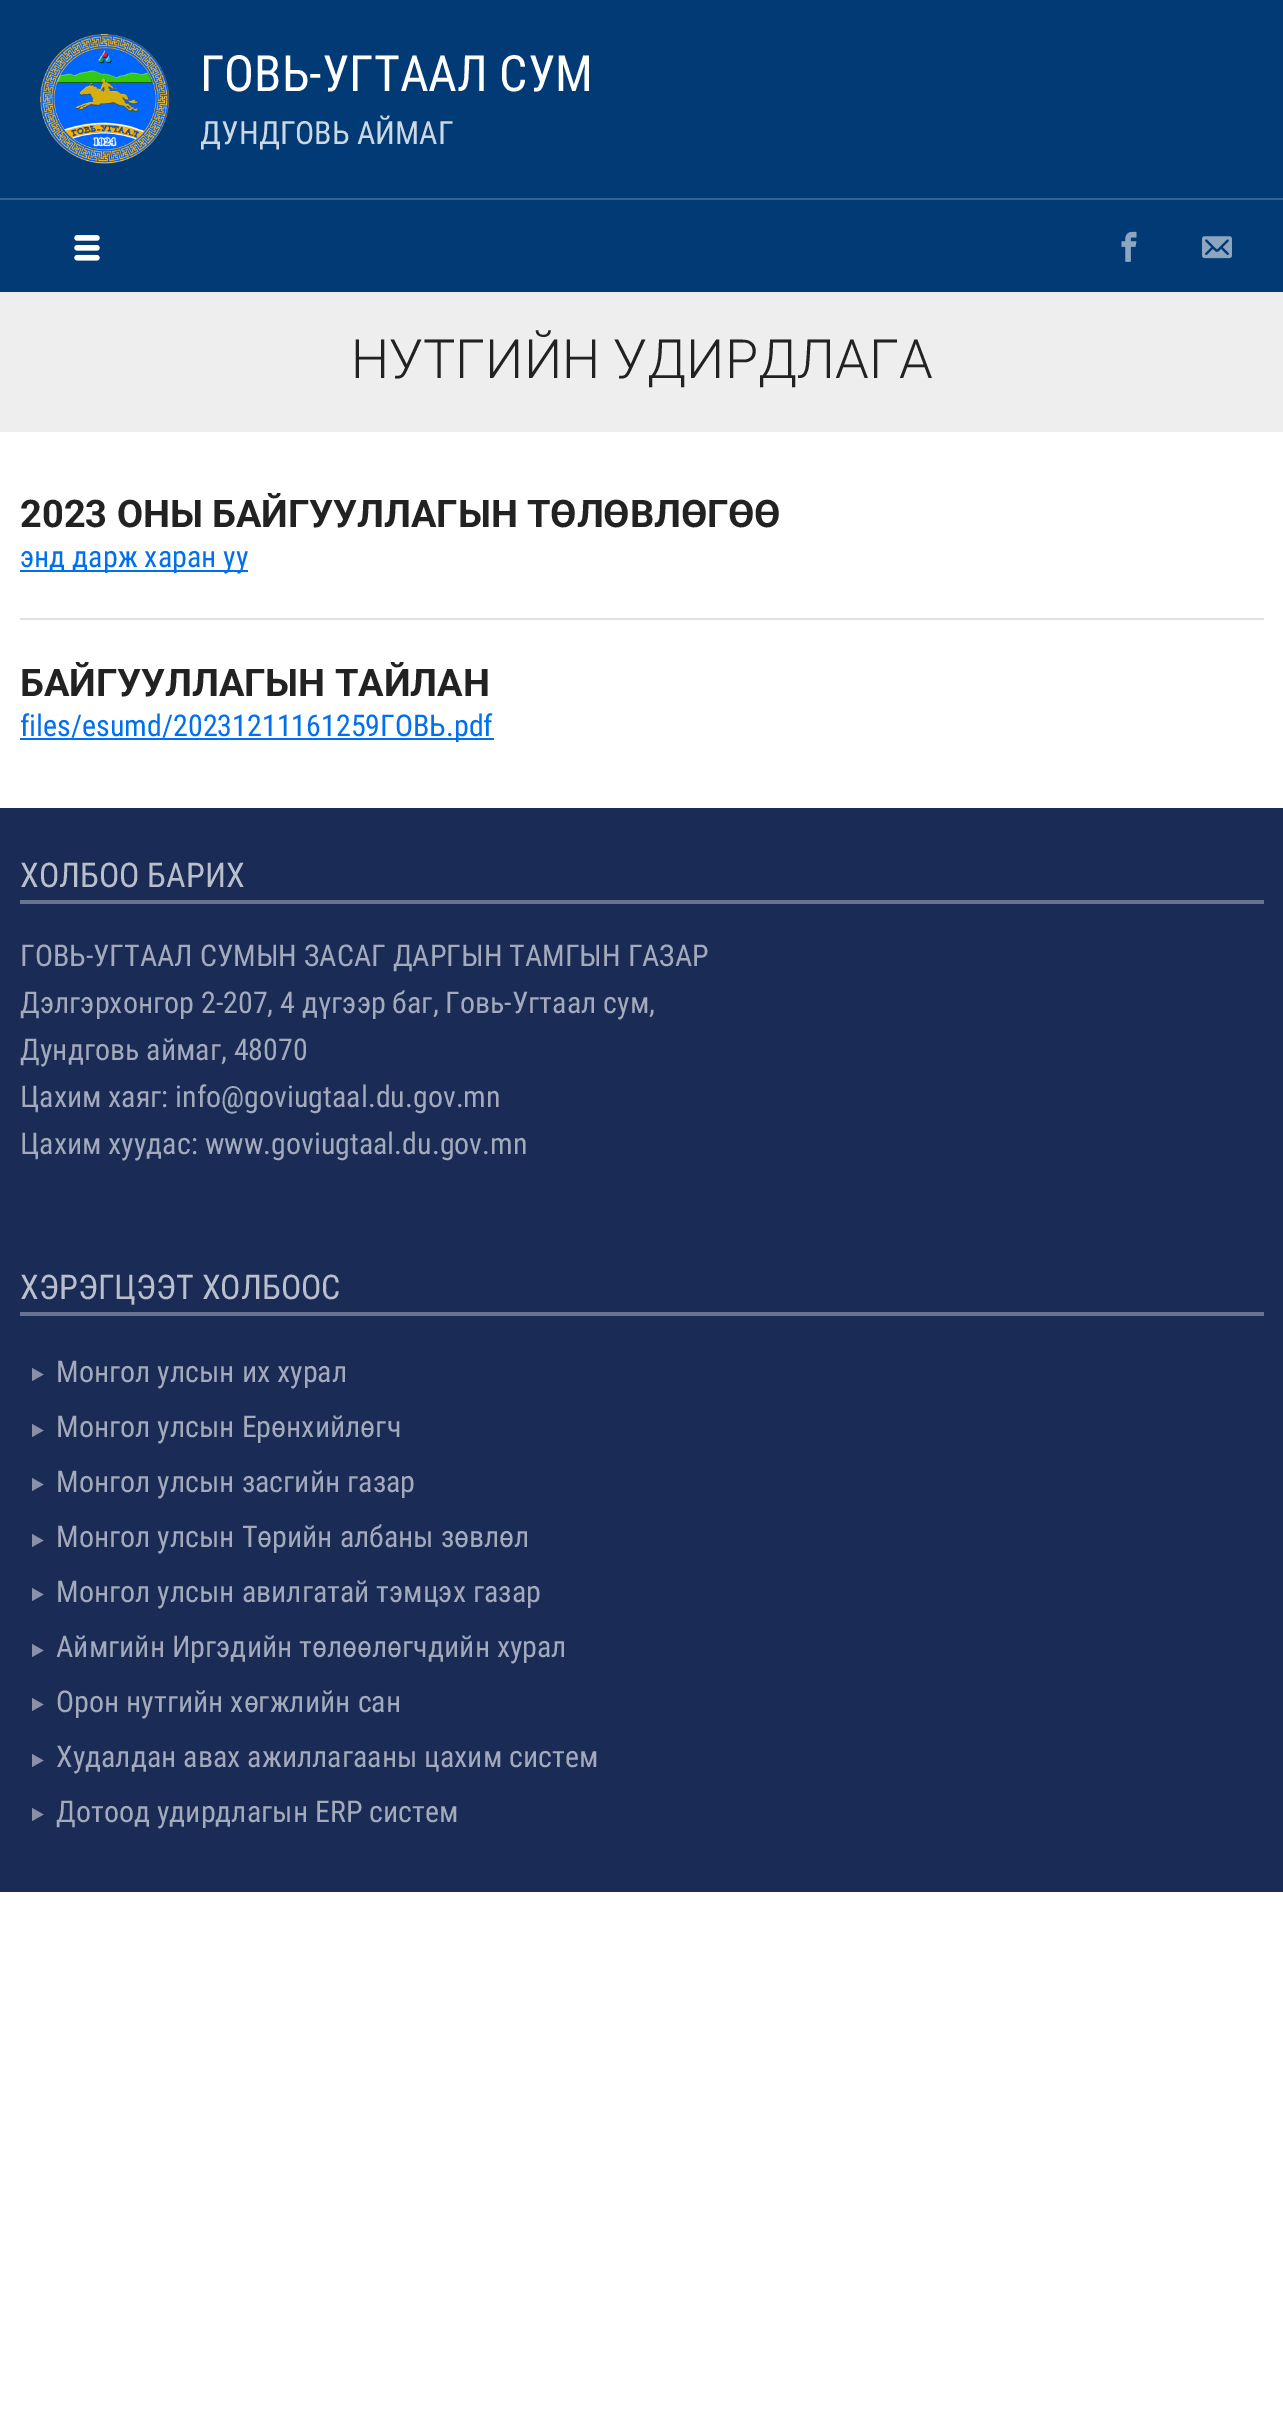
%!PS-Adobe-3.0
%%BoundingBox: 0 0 1283 2409
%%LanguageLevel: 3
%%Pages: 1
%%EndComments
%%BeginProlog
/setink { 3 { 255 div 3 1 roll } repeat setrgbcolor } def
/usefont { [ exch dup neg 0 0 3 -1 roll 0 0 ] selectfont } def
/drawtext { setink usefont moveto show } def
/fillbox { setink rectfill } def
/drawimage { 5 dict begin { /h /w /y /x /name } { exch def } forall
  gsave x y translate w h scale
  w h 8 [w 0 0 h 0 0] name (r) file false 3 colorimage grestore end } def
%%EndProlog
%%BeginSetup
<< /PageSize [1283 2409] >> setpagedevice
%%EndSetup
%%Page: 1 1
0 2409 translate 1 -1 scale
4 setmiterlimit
0 0 1283 2409 255 255 255 fillbox
0 0 1283 198 1 58 116 fillbox
(assets/img1.rgb) 40 34 130 130 drawimage
(ГОВЬ-УГТААЛ СУМ) 200 91 /RobotoCondensed-Regular 50 255 255 255 drawtext
(ДУНДГОВЬ АЙМАГ) 200 144 /RobotoCondensed-Regular 32 204 216 227 drawtext
0 200 1283 92 1 58 116 fillbox
0 198 1283 2 52 97 144 fillbox
(assets/img2.rgb) 74 235 26 26 drawimage
(assets/img3.rgb) 1121 231 16 31 drawimage
(assets/img4.rgb) 1202 236 30 23 drawimage
0 292 1283 140 238 238 238 fillbox
(НУТГИЙН УДИРДЛАГА) 351 378 /Roboto-Light 54 34 34 34 drawtext
(2023 ОНЫ БАЙГУУЛЛАГЫН ТӨЛӨВЛӨГӨӨ) 20 527 /Roboto-Bold 38 34 34 34 drawtext
20 570 228 2 0 112 240 fillbox
(энд дарж харан уу) 20 567 /RobotoCondensed-Regular 30 0 112 240 drawtext
20 618 1244 2 225 225 225 fillbox
(БАЙГУУЛЛАГЫН ТАЙЛАН) 20 696 /Roboto-Bold 38 34 34 34 drawtext
20 738 474 2 0 112 240 fillbox
(files/esumd/20231211161259ГОВЬ.pdf) 20 736 /RobotoCondensed-Regular 30 0 112 240 drawtext
0 808 1283 1084 26 43 85 fillbox
20 900 1244 4 104 115 143 fillbox
(ХОЛБОО БАРИХ) 20 887 /RobotoCondensed-Regular 34 186 191 204 drawtext
(ГОВЬ-УГТААЛ СУМЫН ЗАСАГ ДАРГЫН ТАМГЫН ГАЗАР) 20 966 /RobotoCondensed-Regular 30 163 170 187 drawtext
(Дэлгэрхонгор 2-207, 4 дүгээр баг, Говь-Угтаал сум,) 20 1013 /RobotoCondensed-Regular 30 163 170 187 drawtext
(Дундговь аймаг, 48070) 20 1060 /RobotoCondensed-Regular 30 163 170 187 drawtext
(Цахим хаяг: info@goviugtaal.du.gov.mn) 20 1107 /RobotoCondensed-Regular 30 163 170 187 drawtext
(Цахим хуудас: www.goviugtaal.du.gov.mn) 20 1154 /RobotoCondensed-Regular 30 163 170 187 drawtext
20 1312 1244 4 104 115 143 fillbox
(ХЭРЭГЦЭЭТ ХОЛБООС) 20 1299 /RobotoCondensed-Regular 34 186 191 204 drawtext
136 145 167 setink
43.5 1374.5 moveto 32 1381 lineto 32 1368 lineto closepath fill
(Монгол улсын их хурал) 56 1382 /RobotoCondensed-Regular 30 163 170 187 drawtext
136 145 167 setink
43.5 1430.5 moveto 32 1437 lineto 32 1424 lineto closepath fill
(Монгол улсын Ерөнхийлөгч) 56 1437 /RobotoCondensed-Regular 30 163 170 187 drawtext
136 145 167 setink
43.5 1484.5 moveto 32 1491 lineto 32 1478 lineto closepath fill
(Монгол улсын засгийн газар) 56 1492 /RobotoCondensed-Regular 30 163 170 187 drawtext
136 145 167 setink
43.5 1540.5 moveto 32 1547 lineto 32 1534 lineto closepath fill
(Монгол улсын Төрийн албаны зөвлөл) 56 1547 /RobotoCondensed-Regular 30 163 170 187 drawtext
136 145 167 setink
43.5 1594.5 moveto 32 1601 lineto 32 1588 lineto closepath fill
(Монгол улсын авилгатай тэмцэх газар) 56 1602 /RobotoCondensed-Regular 30 163 170 187 drawtext
136 145 167 setink
43.5 1650.5 moveto 32 1657 lineto 32 1644 lineto closepath fill
(Аймгийн Иргэдийн төлөөлөгчдийн хурал) 56 1657 /RobotoCondensed-Regular 30 163 170 187 drawtext
136 145 167 setink
43.5 1704.5 moveto 32 1711 lineto 32 1698 lineto closepath fill
(Орон нутгийн хөгжлийн сан) 56 1712 /RobotoCondensed-Regular 30 163 170 187 drawtext
136 145 167 setink
43.5 1760.5 moveto 32 1767 lineto 32 1754 lineto closepath fill
(Худалдан авах ажиллагааны цахим систем) 56 1767 /RobotoCondensed-Regular 30 163 170 187 drawtext
136 145 167 setink
43.5 1814.5 moveto 32 1821 lineto 32 1808 lineto closepath fill
(Дотоод удирдлагын ERP систем) 56 1822 /RobotoCondensed-Regular 30 163 170 187 drawtext
showpage
%%EOF
